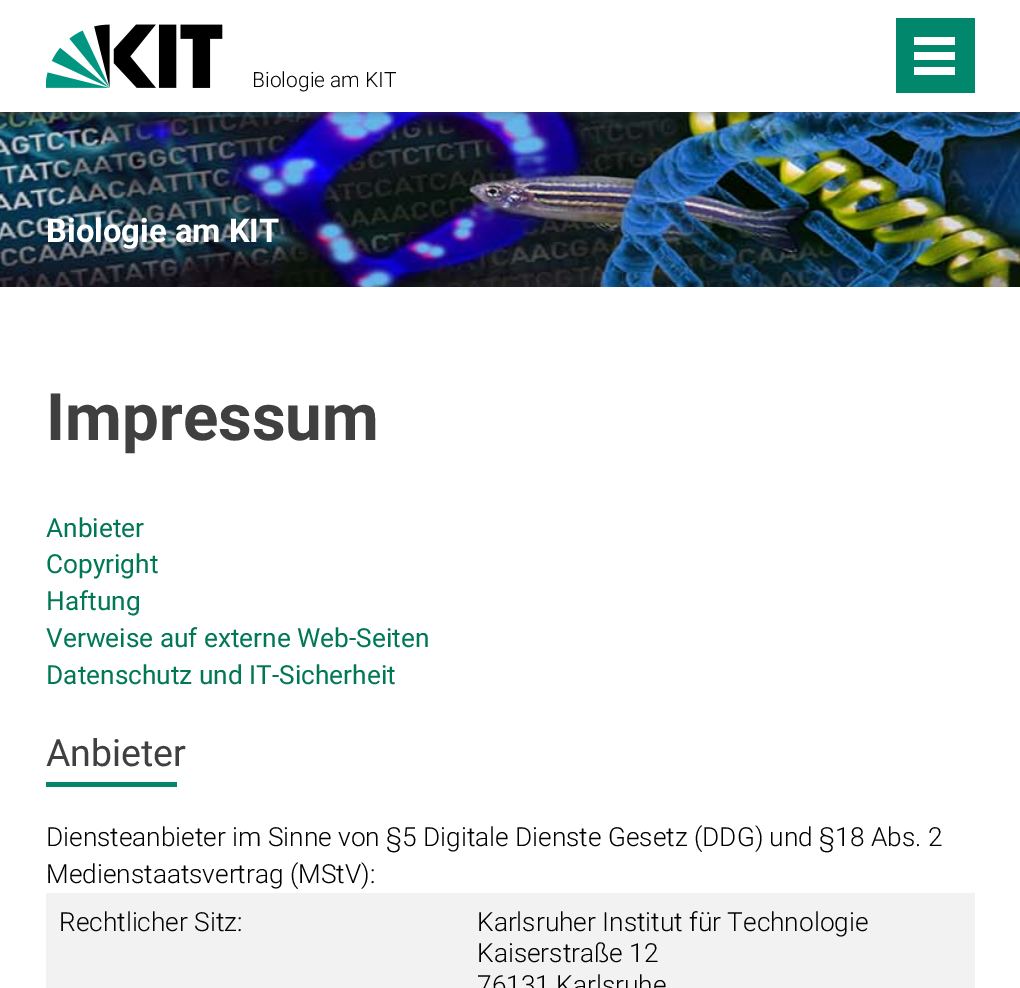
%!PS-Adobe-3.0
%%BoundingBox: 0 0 1020 988
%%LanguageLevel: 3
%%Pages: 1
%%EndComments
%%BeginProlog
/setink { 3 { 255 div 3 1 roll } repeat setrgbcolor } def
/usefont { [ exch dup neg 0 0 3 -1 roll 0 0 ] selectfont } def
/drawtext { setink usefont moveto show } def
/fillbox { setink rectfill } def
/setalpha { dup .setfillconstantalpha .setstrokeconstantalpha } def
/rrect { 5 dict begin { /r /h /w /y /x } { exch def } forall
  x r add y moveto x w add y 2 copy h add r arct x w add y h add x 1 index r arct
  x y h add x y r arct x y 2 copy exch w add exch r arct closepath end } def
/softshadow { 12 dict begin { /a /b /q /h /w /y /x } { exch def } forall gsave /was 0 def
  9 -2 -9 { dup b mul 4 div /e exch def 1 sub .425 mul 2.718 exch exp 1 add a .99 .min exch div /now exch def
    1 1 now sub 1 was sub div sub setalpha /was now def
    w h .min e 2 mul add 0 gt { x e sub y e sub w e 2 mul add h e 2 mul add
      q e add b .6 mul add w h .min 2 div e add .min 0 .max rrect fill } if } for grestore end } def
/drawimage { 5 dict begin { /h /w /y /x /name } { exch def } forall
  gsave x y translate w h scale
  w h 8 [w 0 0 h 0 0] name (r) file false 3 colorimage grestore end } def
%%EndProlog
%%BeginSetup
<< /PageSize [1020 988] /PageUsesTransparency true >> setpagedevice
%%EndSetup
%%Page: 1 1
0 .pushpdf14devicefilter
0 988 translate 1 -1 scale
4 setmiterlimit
0 0 1020 988 255 255 255 fillbox
(assets/img2.rgb) 0 112 1020 175 drawimage
gsave
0 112 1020 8 rectclip
64 64 64 setink
0 0 1020 112 0 4.5 0.5 softshadow
grestore
(assets/img1.rgb) 46 24 177 64 drawimage
(Biologie am KIT) 252 87 /Roboto-Light 21 0 0 0 drawtext
896 18 79 75 0 135 108 fillbox
914 67 41 8 255 255 255 fillbox
914 52 41 8 255 255 255 fillbox
914 37 41 8 255 255 255 fillbox
(Biologie am KIT) 46 242 /Roboto-Bold 32.75 255 255 255 drawtext
(Impressum) 46 440 /Roboto-Bold 65.5 64 64 64 drawtext
(Anbieter) 46 537 /Roboto-Regular 26.25 0 119 85 drawtext
(Copyright) 46 573 /Roboto-Regular 26.25 0 119 85 drawtext
(Haftung) 46 610 /Roboto-Regular 26.25 0 119 85 drawtext
(Verweise auf externe Web-Seiten) 46 647 /Roboto-Regular 26.25 0 119 85 drawtext
(Datenschutz und IT-Sicherheit) 46 684 /Roboto-Regular 26.25 0 119 85 drawtext
(Anbieter) 46 766 /Roboto-Regular 37.5 64 64 64 drawtext
46 782 131 5 0 135 108 fillbox
(Diensteanbieter im Sinne von §5 Digitale Dienste Gesetz \(DDG\) und §18 Abs. 2) 46 846 /Roboto-Light 26.25 0 0 0 drawtext
(Medienstaatsvertrag \(MStV\):) 46 883 /Roboto-Light 26.25 0 0 0 drawtext
46 893 929 95 242 242 242 fillbox
(Rechtlicher Sitz:) 59 931 /Roboto-Light 26.25 0 0 0 drawtext
(Karlsruher Institut für Technologie) 477 931 /Roboto-Light 26.25 0 0 0 drawtext
(Kaiserstraße 12) 477 962 /Roboto-Light 26.25 0 0 0 drawtext
(76131 Karlsruhe) 477 994 /Roboto-Light 26.25 0 0 0 drawtext
.poppdf14devicefilter showpage
%%EOF
